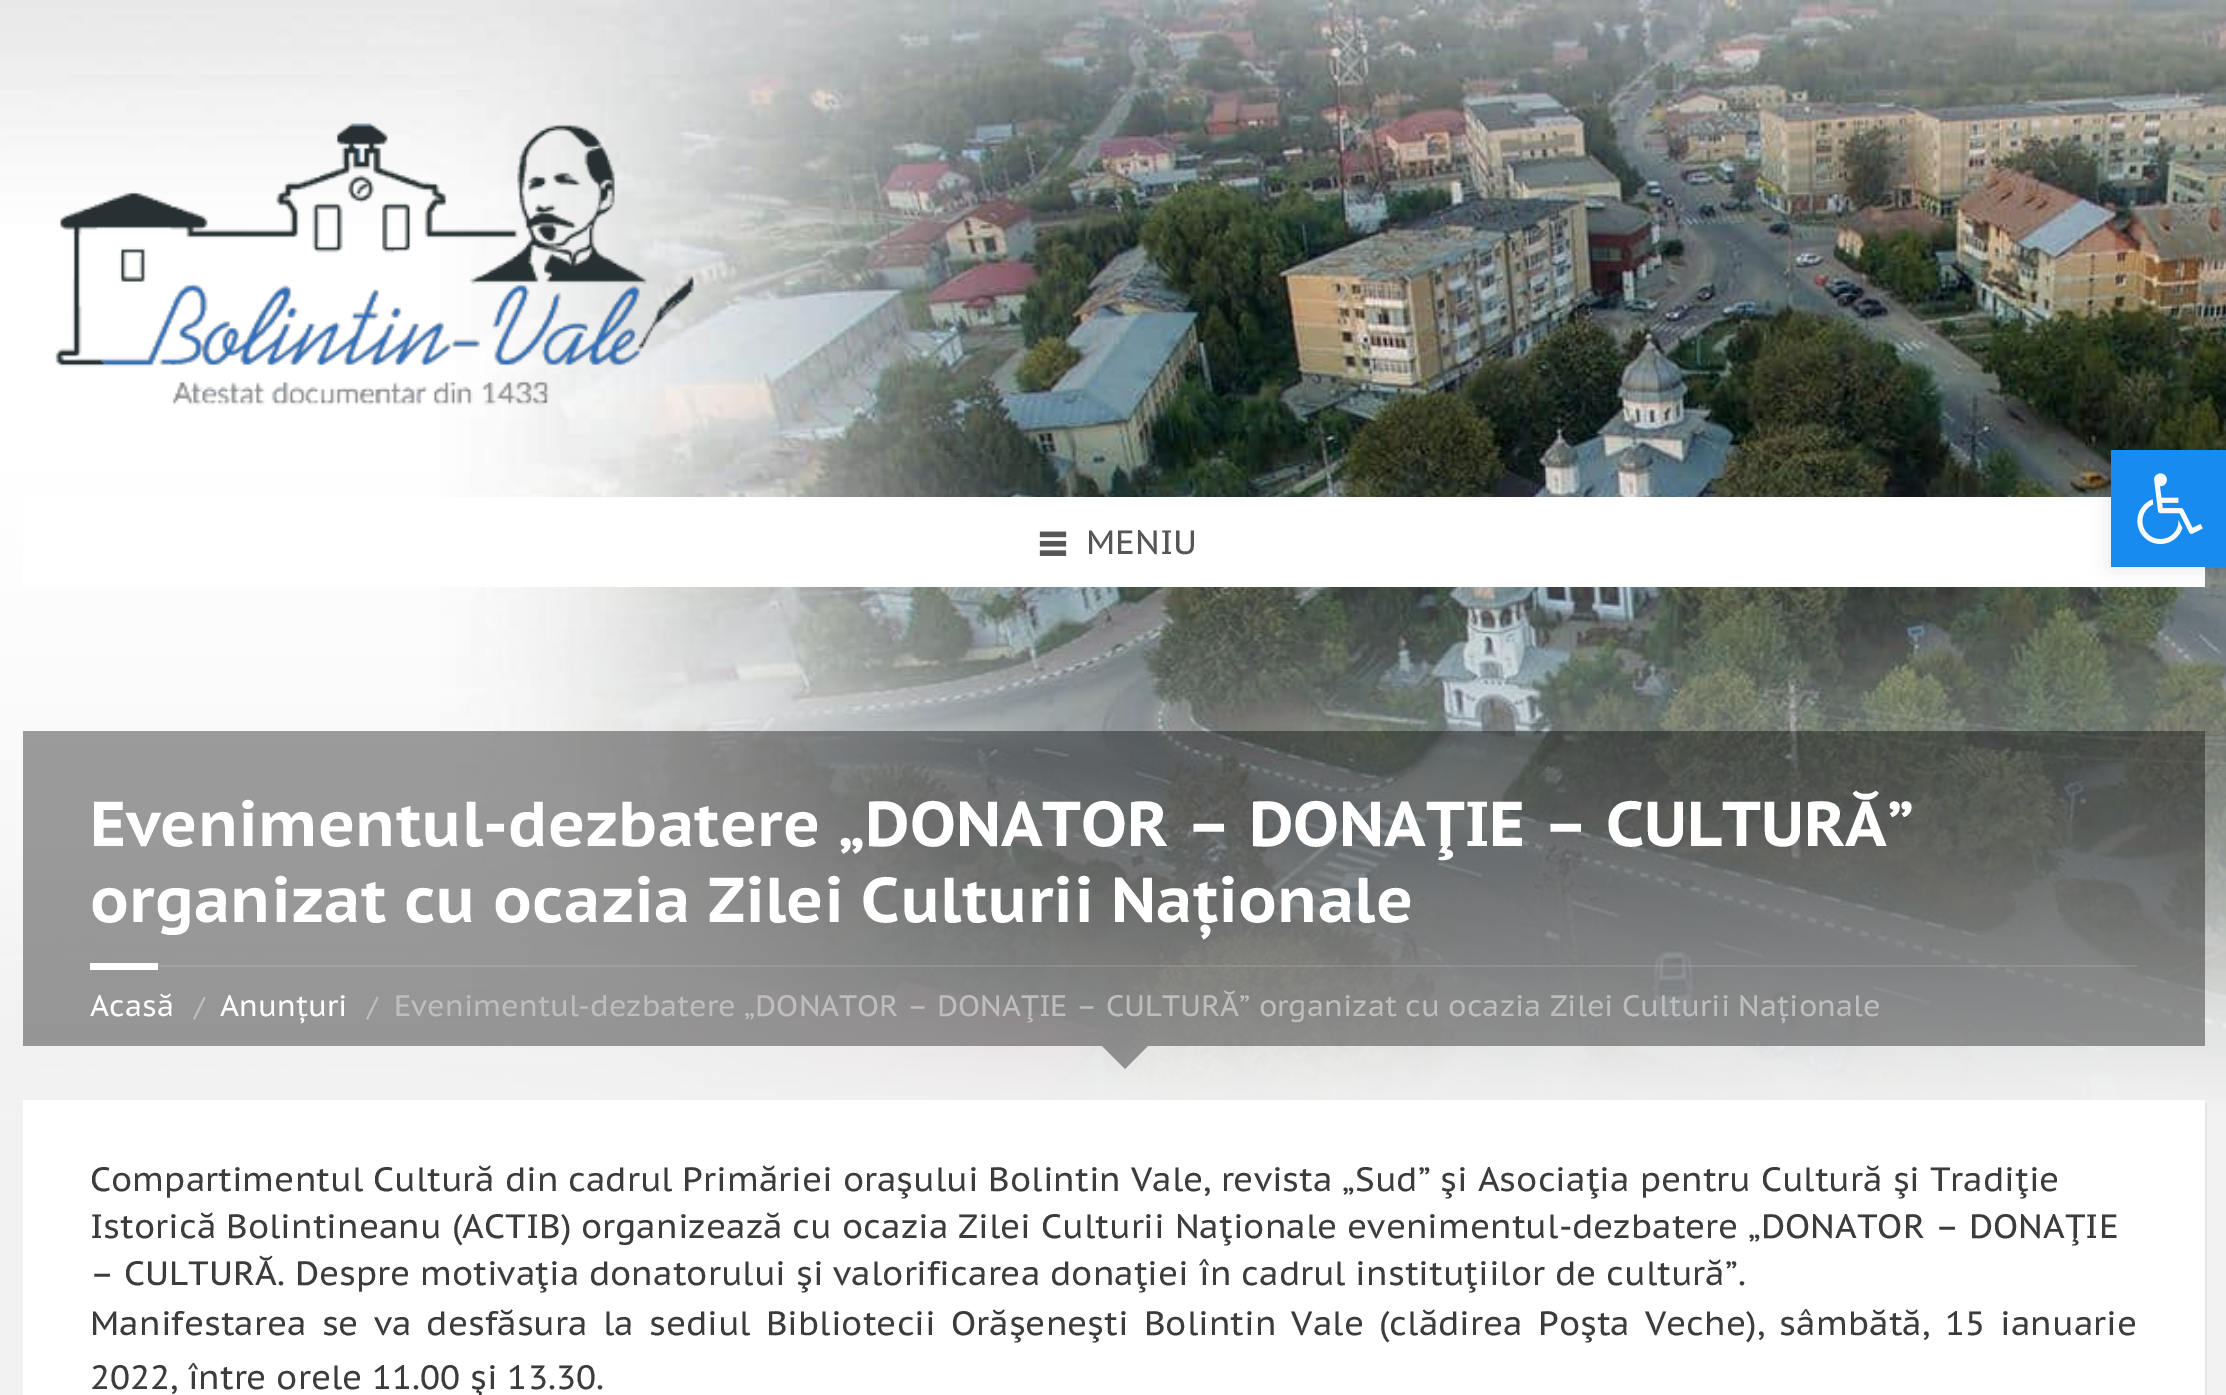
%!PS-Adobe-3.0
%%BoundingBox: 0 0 2226 1395
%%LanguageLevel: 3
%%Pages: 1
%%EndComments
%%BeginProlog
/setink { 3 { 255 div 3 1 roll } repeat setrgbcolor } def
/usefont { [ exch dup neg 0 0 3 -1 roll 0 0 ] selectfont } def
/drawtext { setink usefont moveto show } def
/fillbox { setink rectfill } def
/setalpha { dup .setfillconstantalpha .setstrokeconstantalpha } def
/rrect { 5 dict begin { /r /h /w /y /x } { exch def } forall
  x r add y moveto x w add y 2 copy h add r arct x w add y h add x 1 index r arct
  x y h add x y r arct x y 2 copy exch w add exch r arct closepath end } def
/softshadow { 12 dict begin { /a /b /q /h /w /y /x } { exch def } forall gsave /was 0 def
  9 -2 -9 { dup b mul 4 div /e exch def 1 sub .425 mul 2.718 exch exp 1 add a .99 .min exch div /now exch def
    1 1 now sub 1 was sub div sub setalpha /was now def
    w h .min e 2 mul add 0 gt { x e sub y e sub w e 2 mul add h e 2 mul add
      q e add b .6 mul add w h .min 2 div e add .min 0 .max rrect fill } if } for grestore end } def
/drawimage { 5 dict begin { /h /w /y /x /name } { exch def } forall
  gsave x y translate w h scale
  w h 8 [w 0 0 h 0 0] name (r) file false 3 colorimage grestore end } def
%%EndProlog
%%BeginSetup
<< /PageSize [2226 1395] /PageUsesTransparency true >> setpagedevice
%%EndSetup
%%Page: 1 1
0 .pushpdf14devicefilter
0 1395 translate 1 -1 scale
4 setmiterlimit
0 0 2226 1395 242 242 242 fillbox
(assets/img1.rgb) 0 0 2226 1125 drawimage
(assets/img2.rgb) 55 123 640 283 drawimage
23 497 2182 90 255 255 255 fillbox
(assets/img3.rgb) 1039 531 28 25 drawimage
(MENIU) 1086 554 /PTSansCaption-Regular 33.75 86 86 86 drawtext
0 0 0 setink
2111 450 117 117 0 11 0.1 softshadow
2111 450 115 117 23 139 239 fillbox
(assets/img4.rgb) 2137 473 66 72 drawimage
0.38 setalpha
23 731 2182 315 0 0 0 fillbox
0.1 setalpha
158 965 1980 2 255 255 255 fillbox
1 setalpha
(Evenimentul-dezbatere „DONATOR – DONAŢIE – CULTURĂ”) 90 846 /PTSansCaption-Bold 63.25 255 255 255 drawtext
(organizat cu ocazia Zilei Culturii Naționale) 90 922 /PTSansCaption-Bold 63.25 255 255 255 drawtext
90 963 68 7 255 255 255 fillbox
(Acasă) 90 1016 /PTSansCaption-Regular 29.53 255 255 255 drawtext
(/) 194 1016 /PTSansCaption-Regular 27 190 190 190 drawtext
(Anunțuri) 220 1016 /PTSansCaption-Regular 29.53 255 255 255 drawtext
(/) 367 1016 /PTSansCaption-Regular 27 190 190 190 drawtext
/PTSansCaption-Regular 29.53 usefont
394 1016 moveto -0.25 0 32 (Evenimentul-dezbatere „DONATOR – DONAŢIE – CULTURĂ” organizat cu ocazia Zilei Culturii Naționale) widthshow
0.38 setalpha
0 0 0 setink
1102 1046 moveto 1148 1046 lineto 1125 1069 lineto closepath fill
0.05 setalpha
25 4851 moveto 25 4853 lineto 2207 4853 lineto 2207 1103 lineto 2205 1103 lineto 2205 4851 lineto closepath fill
1 setalpha
23 1100 2182 295 255 255 255 fillbox
(Compartimentul Cultură din cadrul Primăriei oraşului Bolintin Vale, revista „Sud” şi Asociaţia pentru Cultură şi Tradiţie) 90 1191 /PTSansCaption-Regular 33.75 60 60 60 drawtext
(Istorică Bolintineanu \(ACTIB\) organizează cu ocazia Zilei Culturii Naţionale evenimentul-dezbatere „DONATOR – DONAŢIE) 90 1238 /PTSansCaption-Regular 33.75 60 60 60 drawtext
(– CULTURĂ. Despre motivaţia donatorului şi valorificarea donaţiei în cadrul instituţiilor de cultură”.) 90 1285 /PTSansCaption-Regular 33.75 60 60 60 drawtext
90 1335 moveto 5.25 0 32 (Manifestarea se va desfăsura la sediul Bibliotecii Orăşeneşti Bolintin Vale \(clădirea Poşta Veche\), sâmbătă, 15 ianuarie) widthshow
(2022, între orele 11.00 şi 13.30.) 90 1389 /PTSansCaption-Regular 33.75 60 60 60 drawtext
.poppdf14devicefilter showpage
%%EOF
